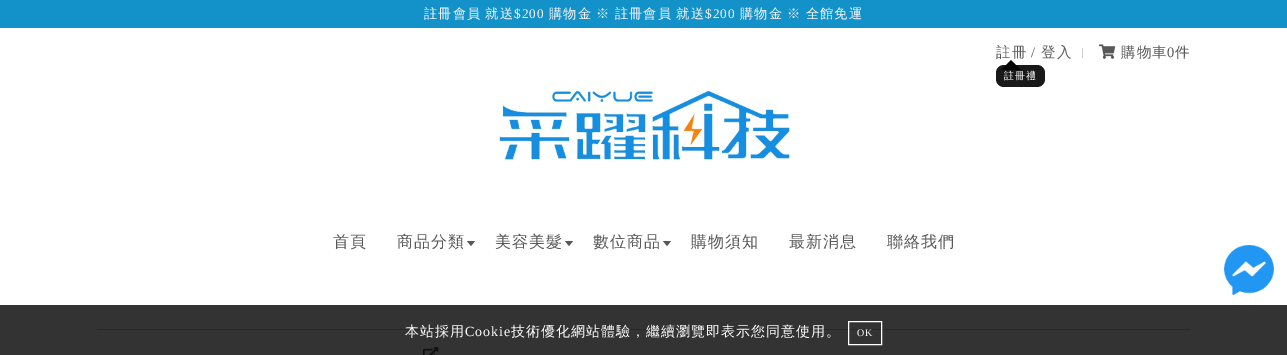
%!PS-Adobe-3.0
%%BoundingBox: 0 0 1287 355
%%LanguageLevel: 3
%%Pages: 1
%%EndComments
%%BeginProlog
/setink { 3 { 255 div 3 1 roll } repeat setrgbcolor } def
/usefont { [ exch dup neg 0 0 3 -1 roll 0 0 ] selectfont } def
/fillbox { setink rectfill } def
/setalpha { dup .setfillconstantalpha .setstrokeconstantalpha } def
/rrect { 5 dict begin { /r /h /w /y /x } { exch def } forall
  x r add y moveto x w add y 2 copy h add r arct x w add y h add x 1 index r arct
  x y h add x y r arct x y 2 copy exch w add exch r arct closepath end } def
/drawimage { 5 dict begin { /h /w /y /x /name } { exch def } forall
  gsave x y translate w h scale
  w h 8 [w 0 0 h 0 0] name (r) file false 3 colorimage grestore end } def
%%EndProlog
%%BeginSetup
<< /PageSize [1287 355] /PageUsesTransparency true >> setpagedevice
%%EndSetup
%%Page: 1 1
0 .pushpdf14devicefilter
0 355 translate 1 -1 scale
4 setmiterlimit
0 0 1287 355 255 255 255 fillbox
0 0 1287 28 19 146 201 fillbox
/WenQuanYiZenHei-Medium 13.25 usefont
249 246 246 setink
424 18 moveto -0.5 0 32 1 0 (註冊會員 就送) awidthshow
/LiberationSerif-Regular 13.25 usefont
514 18 moveto 1 0 ($200) ashow
/WenQuanYiZenHei-Medium 13.25 usefont
549 18 moveto -0.5 0 32 1 0 (購物金 ※ 註冊會員 就送) awidthshow
/LiberationSerif-Regular 13.25 usefont
705 18 moveto 1 0 ($200) ashow
/WenQuanYiZenHei-Medium 13.25 usefont
740 18 moveto -0.5 0 32 1 0 (購物金 ※ 全館免運) awidthshow
/WenQuanYiZenHei-Medium 14.5 usefont
89 87 87 setink
996 57 moveto 1 0 (註冊) ashow
/LiberationSerif-Regular 14.5 usefont
1031 57 moveto 1 0 (/) ashow
/WenQuanYiZenHei-Medium 14.5 usefont
1041 57 moveto 1 0 (登入) ashow
0 0 0 setink
1021 70 moveto 1001 70 lineto 1011 60 lineto closepath fill
0.9 setalpha
996 65 49 22 8 rrect fill
/WenQuanYiZenHei-Medium 10 usefont
1 setalpha
255 255 255 setink
1004 79 moveto 1 0 (註冊禮) ashow
1082 48 1 10 204 204 204 fillbox
(assets/img1.rgb) 1099 44 17 15 drawimage
/WenQuanYiZenHei-Medium 14.5 usefont
89 87 87 setink
1121 57 moveto 1 0 (購物車) ashow
/LiberationSerif-Regular 14.5 usefont
1167 57 moveto 1 0 (0) ashow
/WenQuanYiZenHei-Medium 14.5 usefont
1175 57 moveto 1 0 (件) ashow
(assets/img2.rgb) 499 88 293 75 drawimage
/WenQuanYiZenHei-Medium 16 usefont
333 247 moveto 1 0 (首頁) ashow
397 247 moveto 1 0 (商品分類) ashow
467 241 moveto 475 241 lineto 471 246 lineto closepath fill
495 247 moveto 1 0 (美容美髮) ashow
565 241 moveto 573 241 lineto 569 246 lineto closepath fill
593 247 moveto 1 0 (數位商品) ashow
663 241 moveto 671 241 lineto 667 246 lineto closepath fill
691 247 moveto 1 0 (購物須知) ashow
789 247 moveto 1 0 (最新消息) ashow
887 247 moveto 1 0 (聯絡我們) ashow
97 329 1093 1 204 204 204 fillbox
(assets/img3.rgb) 423 347 16 8 drawimage
(assets/img4.rgb) 1224 245 50 50 drawimage
0.8 setalpha
0 305 1287 50 0 0 0 fillbox
/WenQuanYiZenHei-Medium 14 usefont
1 setalpha
255 255 255 setink
405 336 moveto 1 0 (本站採用) ashow
/LiberationSerif-Regular 14 usefont
465 336 moveto 1 0 (Cookie) ashow
/WenQuanYiZenHei-Medium 14 usefont
511 336 moveto 1 0 (技術優化網站體驗，繼續瀏覽即表示您同意使用。) ashow
848.5 321.5 33 23 rectstroke
/LiberationSerif-Regular 10 usefont
857 336 moveto 1 0 (OK) ashow
.poppdf14devicefilter showpage
%%EOF
